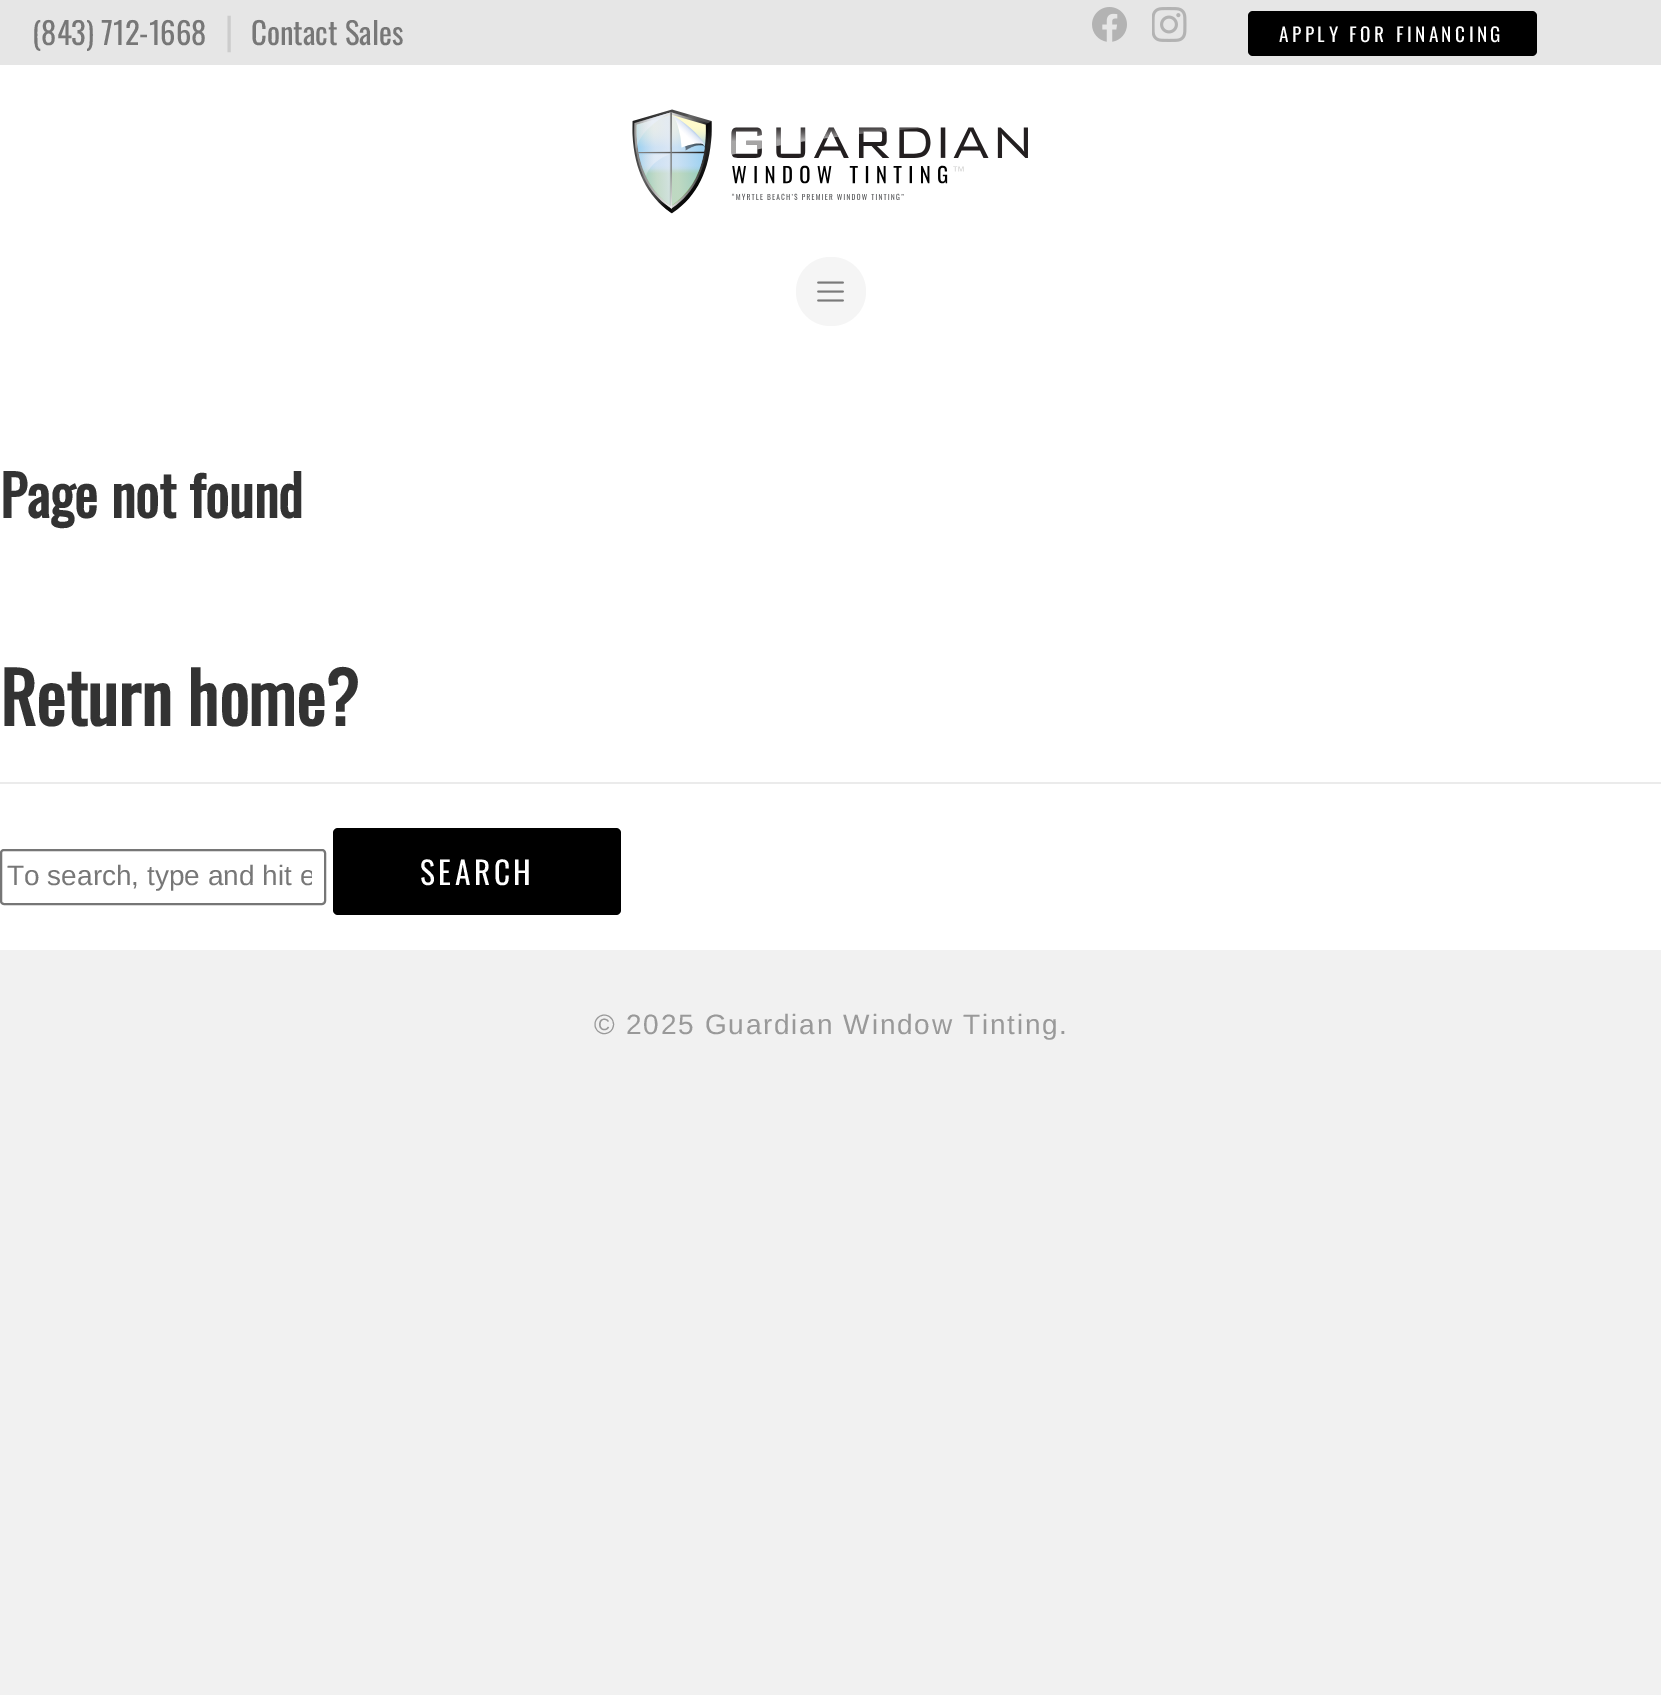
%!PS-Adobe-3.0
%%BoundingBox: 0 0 1661 1695
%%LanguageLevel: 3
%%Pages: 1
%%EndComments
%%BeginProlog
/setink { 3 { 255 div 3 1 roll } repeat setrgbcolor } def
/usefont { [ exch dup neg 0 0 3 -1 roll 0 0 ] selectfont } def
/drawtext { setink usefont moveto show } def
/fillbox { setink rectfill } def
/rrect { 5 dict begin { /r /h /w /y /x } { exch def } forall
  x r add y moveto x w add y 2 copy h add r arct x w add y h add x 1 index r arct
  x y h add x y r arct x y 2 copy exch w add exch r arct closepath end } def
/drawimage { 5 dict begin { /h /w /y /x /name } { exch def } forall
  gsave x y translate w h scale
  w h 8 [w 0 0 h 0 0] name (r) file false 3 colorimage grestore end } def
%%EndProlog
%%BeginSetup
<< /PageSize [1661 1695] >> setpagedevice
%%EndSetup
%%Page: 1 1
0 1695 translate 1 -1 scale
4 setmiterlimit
0 0 1661 1695 241 241 241 fillbox
0 65 1661 885 255 255 255 fillbox
0 0 1661 65 230 230 230 fillbox
(\(843\) 712-1668) 32 45 /Oswald-Regular 30.75 119 119 119 drawtext
(|) 224 44 /LiberationSans-Regular 39 204 204 204 drawtext
(Contact Sales) 251 45 /Oswald-Regular 30.75 119 119 119 drawtext
(assets/img1.rgb) 1092 7 35 35 drawimage
(assets/img2.rgb) 1152 7 35 35 drawimage
0 0 0 setink
1248 11 289 45 5 rrect fill
/Oswald-Regular 19.25 usefont
255 255 255 setink
1279 42 moveto 3.5 0 (APPLY FOR FINANCING) ashow
(assets/img3.rgb) 632 109 396 105 drawimage
245 245 245 setink
796 257 70 69 34.5 rrect fill
(assets/img4.rgb) 817 281 27 21 drawimage
(Page not found) 0 518 /Oswald-Bold 56 51 51 51 drawtext
0 782 1661 2 235 235 235 fillbox
(Return home?) 0 726 /Oswald-Bold 70 51 51 51 drawtext
118 118 118 setink
2 setlinewidth
1 850 324 54 3 rrect stroke
gsave
7 861 305 32 rectclip
(To search, type and hit e) 7 885 /LiberationSans-Regular 28 119 119 119 drawtext
grestore
0 0 0 setink
333 828 288 87 5 rrect fill
/Oswald-Regular 31.5 usefont
255 255 255 setink
420 885 moveto 3.5 0 (SEARCH) ashow
/LiberationSans-Regular 28 usefont
153 153 153 setink
594 1034 moveto 1.75 0 (© 2025 Guardian Window Tinting.) ashow
showpage
%%EOF
